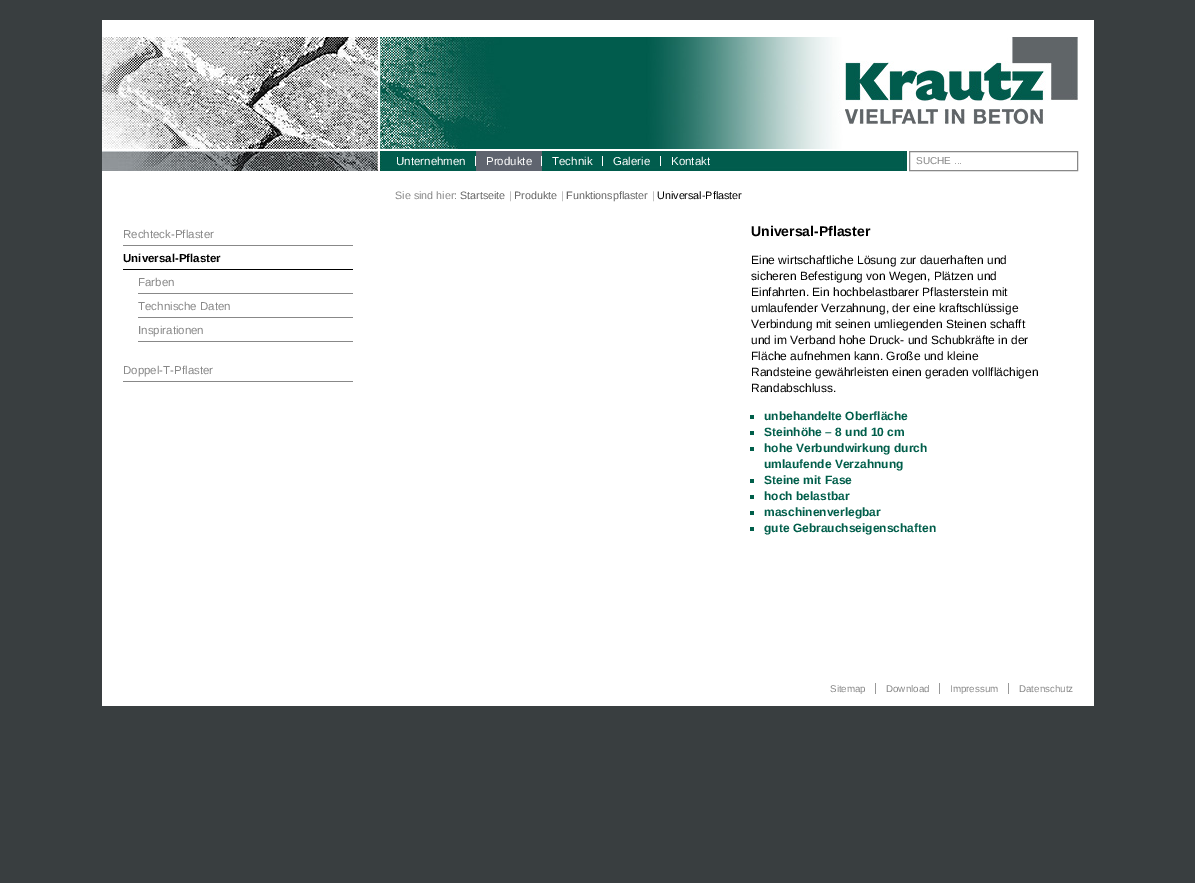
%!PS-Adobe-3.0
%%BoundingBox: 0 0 1195 883
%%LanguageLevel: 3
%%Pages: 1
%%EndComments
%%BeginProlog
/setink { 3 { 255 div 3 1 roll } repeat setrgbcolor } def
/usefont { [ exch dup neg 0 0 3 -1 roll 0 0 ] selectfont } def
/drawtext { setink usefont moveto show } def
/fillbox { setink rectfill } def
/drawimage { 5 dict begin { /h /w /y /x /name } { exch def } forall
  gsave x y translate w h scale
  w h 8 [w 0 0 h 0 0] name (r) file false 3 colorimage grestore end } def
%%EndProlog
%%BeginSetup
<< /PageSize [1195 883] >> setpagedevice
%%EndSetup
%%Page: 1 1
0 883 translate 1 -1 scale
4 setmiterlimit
0 0 1195 883 57 62 64 fillbox
102 20 992 686 255 255 255 fillbox
(assets/img1.rgb) 102 37 976 112 drawimage
(assets/img2.rgb) 102 151 805 20 drawimage
475 156 1 10 255 255 255 fillbox
(Unternehmen) 396 165 /LiberationSans-Regular 11.5 255 255 255 drawtext
476 151 66 20 95 100 111 fillbox
541 156 1 10 255 255 255 fillbox
(Produkte) 486 165 /LiberationSans-Regular 11.5 255 255 255 drawtext
602 156 1 10 255 255 255 fillbox
(Technik) 552 165 /LiberationSans-Regular 11.5 255 255 255 drawtext
660 156 1 10 255 255 255 fillbox
(Galerie) 613 165 /LiberationSans-Regular 11.5 255 255 255 drawtext
(Kontakt) 671 165 /LiberationSans-Regular 11.5 255 255 255 drawtext
136 136 136 setink
909.5 151.5 168 19 rectstroke
(SUCHE ...) 916 164 /LiberationSans-Regular 10 136 136 136 drawtext
(Sie sind hier:) 395 199 /LiberationSans-Regular 10.75 136 136 136 drawtext
(Startseite) 460 199 /LiberationSans-Regular 10.75 102 102 102 drawtext
(|) 509 199 /LiberationSans-Regular 10.75 170 170 170 drawtext
(Produkte) 514 199 /LiberationSans-Regular 10.75 102 102 102 drawtext
(|) 561 199 /LiberationSans-Regular 10.75 170 170 170 drawtext
(Funktionspflaster) 566 199 /LiberationSans-Regular 10.75 102 102 102 drawtext
(|) 652 199 /LiberationSans-Regular 10.75 170 170 170 drawtext
(Universal-Pflaster) 657 199 /LiberationSans-Regular 10.75 0 0 0 drawtext
123 245 230 1 136 136 136 fillbox
(Rechteck-Pflaster) 123 238 /LiberationSans-Regular 11.5 136 136 136 drawtext
123 269 230 1 0 0 0 fillbox
(Universal-Pflaster) 123 262 /LiberationSans-Bold 11.5 0 0 0 drawtext
138 293 215 1 136 136 136 fillbox
(Farben) 138 286 /LiberationSans-Regular 11.5 136 136 136 drawtext
138 317 215 1 136 136 136 fillbox
(Technische Daten) 138 310 /LiberationSans-Regular 11.5 136 136 136 drawtext
138 341 215 1 136 136 136 fillbox
(Inspirationen) 138 334 /LiberationSans-Regular 11.5 136 136 136 drawtext
123 381 230 1 136 136 136 fillbox
(Doppel-T-Pflaster) 123 374 /LiberationSans-Regular 11.5 136 136 136 drawtext
(Universal-Pflaster) 751 236 /LiberationSans-Bold 14 0 0 0 drawtext
(Eine wirtschaftliche Lösung zur dauerhaften und) 751 264 /LiberationSans-Regular 12 0 0 0 drawtext
(sicheren Befestigung von Wegen, Plätzen und) 751 280 /LiberationSans-Regular 12 0 0 0 drawtext
(Einfahrten. Ein hochbelastbarer Pflasterstein mit) 751 296 /LiberationSans-Regular 12 0 0 0 drawtext
(umlaufender Verzahnung, der eine kraftschlüssige) 751 312 /LiberationSans-Regular 12 0 0 0 drawtext
(Verbindung mit seinen umliegenden Steinen schafft) 751 328 /LiberationSans-Regular 12 0 0 0 drawtext
(und im Verband hohe Druck- und Schubkräfte in der) 751 344 /LiberationSans-Regular 12 0 0 0 drawtext
(Fläche aufnehmen kann. Große und kleine) 751 360 /LiberationSans-Regular 12 0 0 0 drawtext
(Randsteine gewährleisten einen geraden vollflächigen) 751 376 /LiberationSans-Regular 12 0 0 0 drawtext
(Randabschluss.) 751 392 /LiberationSans-Regular 12 0 0 0 drawtext
750 415 4 4 0 94 74 fillbox
(unbehandelte Oberfläche) 764 420 /LiberationSans-Bold 12 0 94 74 drawtext
750 431 4 4 0 94 74 fillbox
(Steinhöhe – 8 und 10 cm) 764 436 /LiberationSans-Bold 12 0 94 74 drawtext
750 447 4 4 0 94 74 fillbox
(hohe Verbundwirkung durch) 764 452 /LiberationSans-Bold 12 0 94 74 drawtext
(umlaufende Verzahnung) 764 468 /LiberationSans-Bold 12 0 94 74 drawtext
750 479 4 4 0 94 74 fillbox
(Steine mit Fase) 764 484 /LiberationSans-Bold 12 0 94 74 drawtext
750 495 4 4 0 94 74 fillbox
(hoch belastbar) 764 500 /LiberationSans-Bold 12 0 94 74 drawtext
750 511 4 4 0 94 74 fillbox
(maschinenverlegbar) 764 516 /LiberationSans-Bold 12 0 94 74 drawtext
750 527 4 4 0 94 74 fillbox
(gute Gebrauchseigenschaften) 764 532 /LiberationSans-Bold 12 0 94 74 drawtext
875 683 1 11 153 153 153 fillbox
(Sitemap) 830 692 /LiberationSans-Regular 9.75 136 136 136 drawtext
939 683 1 11 153 153 153 fillbox
(Download) 886 692 /LiberationSans-Regular 9.75 136 136 136 drawtext
1008 683 1 11 153 153 153 fillbox
(Impressum) 950 692 /LiberationSans-Regular 9.75 136 136 136 drawtext
(Datenschutz) 1019 692 /LiberationSans-Regular 9.75 136 136 136 drawtext
showpage
%%EOF
